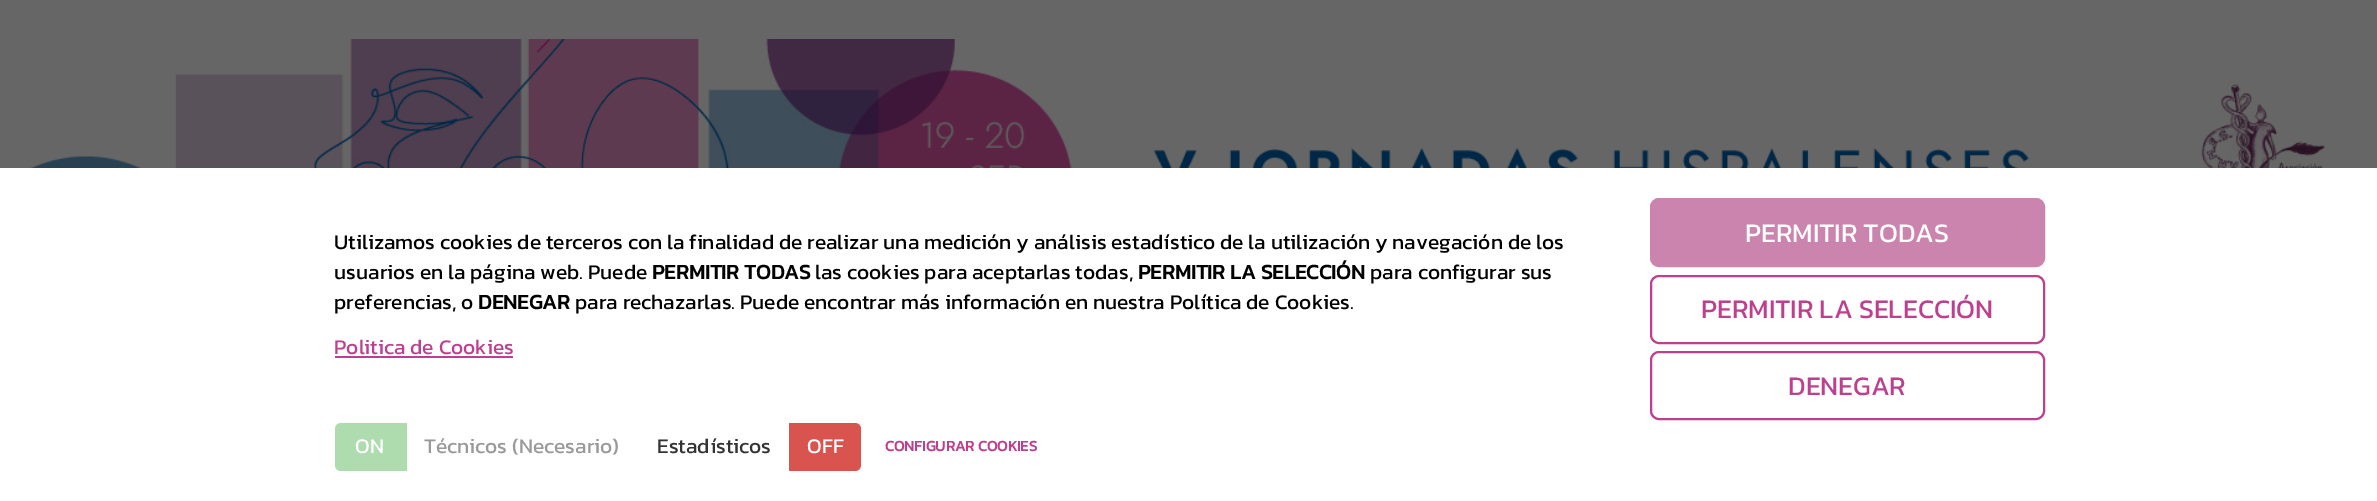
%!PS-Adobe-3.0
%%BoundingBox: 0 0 2377 501
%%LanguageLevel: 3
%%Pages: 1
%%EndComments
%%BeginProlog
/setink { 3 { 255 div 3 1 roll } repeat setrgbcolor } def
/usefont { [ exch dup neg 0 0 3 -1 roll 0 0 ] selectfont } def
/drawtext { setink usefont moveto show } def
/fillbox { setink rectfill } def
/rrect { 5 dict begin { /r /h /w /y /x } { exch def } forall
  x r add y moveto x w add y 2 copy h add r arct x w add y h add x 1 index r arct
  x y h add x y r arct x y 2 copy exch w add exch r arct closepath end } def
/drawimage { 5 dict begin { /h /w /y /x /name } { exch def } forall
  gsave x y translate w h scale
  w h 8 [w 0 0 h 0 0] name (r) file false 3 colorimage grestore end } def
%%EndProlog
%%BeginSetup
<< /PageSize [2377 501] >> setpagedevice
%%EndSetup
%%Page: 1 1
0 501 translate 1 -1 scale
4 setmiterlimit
0 0 2377 501 102 102 102 fillbox
(assets/img1.rgb) 0 39 2377 129 drawimage
0 168 2377 333 255 255 255 fillbox
(Utilizamos cookies de terceros con la finalidad de realizar una medición y análisis estadístico de la utilización y navegación de los) 334 249 /Kanit-Regular 21 0 0 0 drawtext
(usuarios en la página web. Puede) 334 279 /Kanit-Regular 21 0 0 0 drawtext
(PERMITIR TODAS) 652 279 /Kanit-Bold 21 0 0 0 drawtext
(las cookies para aceptarlas todas,) 815 279 /Kanit-Regular 21 0 0 0 drawtext
(PERMITIR LA SELECCIÓN) 1138 279 /Kanit-Bold 21 0 0 0 drawtext
(para configurar sus) 1370 279 /Kanit-Regular 21 0 0 0 drawtext
(preferencias, o) 334 309 /Kanit-Regular 21 0 0 0 drawtext
(DENEGAR) 478 309 /Kanit-Bold 21 0 0 0 drawtext
(para rechazarlas. Puede encontrar más información en nuestra Política de Cookies.) 575 309 /Kanit-Regular 21 0 0 0 drawtext
(Politica de Cookies) 334 354 /Kanit-Regular 21 190 63 142 drawtext
335 356 178 2 190 63 142 fillbox
174 220 174 setink
341 423 moveto 407 423 lineto 407 471 lineto 341 471 lineto 337.5 471 335 468.5 335 465 curveto 335 429 lineto 335 425.5 337.5 423 341 423 curveto closepath fill
(ON) 355 453 /Kanit-Regular 21 255 255 255 drawtext
(Técnicos \(Necesario\)) 424 453 /Kanit-Regular 21 153 153 153 drawtext
(Estadísticos) 657 453 /Kanit-Regular 21 51 51 51 drawtext
217 83 79 setink
789 423 moveto 855 423 lineto 858.5 423 861 425.5 861 429 curveto 861 465 lineto 861 468.5 858.5 471 855 471 curveto 789 471 lineto closepath fill
(OFF) 807 453 /Kanit-Regular 21 255 255 255 drawtext
(CONFIGURAR COOKIES) 885 451 /Kanit-Bold 15 190 63 142 drawtext
203 132 174 setink
1651 199 393 67 8 rrect gsave fill grestore
2 setlinewidth
stroke
(PERMITIR TODAS) 1745 242 /Kanit-Regular 27 255 255 255 drawtext
190 63 142 setink
1651 276 393 67 8 rrect stroke
(PERMITIR LA SELECCIÓN) 1701 318 /Kanit-Regular 27 190 63 142 drawtext
1651 352 393 67 8 rrect stroke
(DENEGAR) 1788 395 /Kanit-Regular 27 190 63 142 drawtext
showpage
%%EOF
